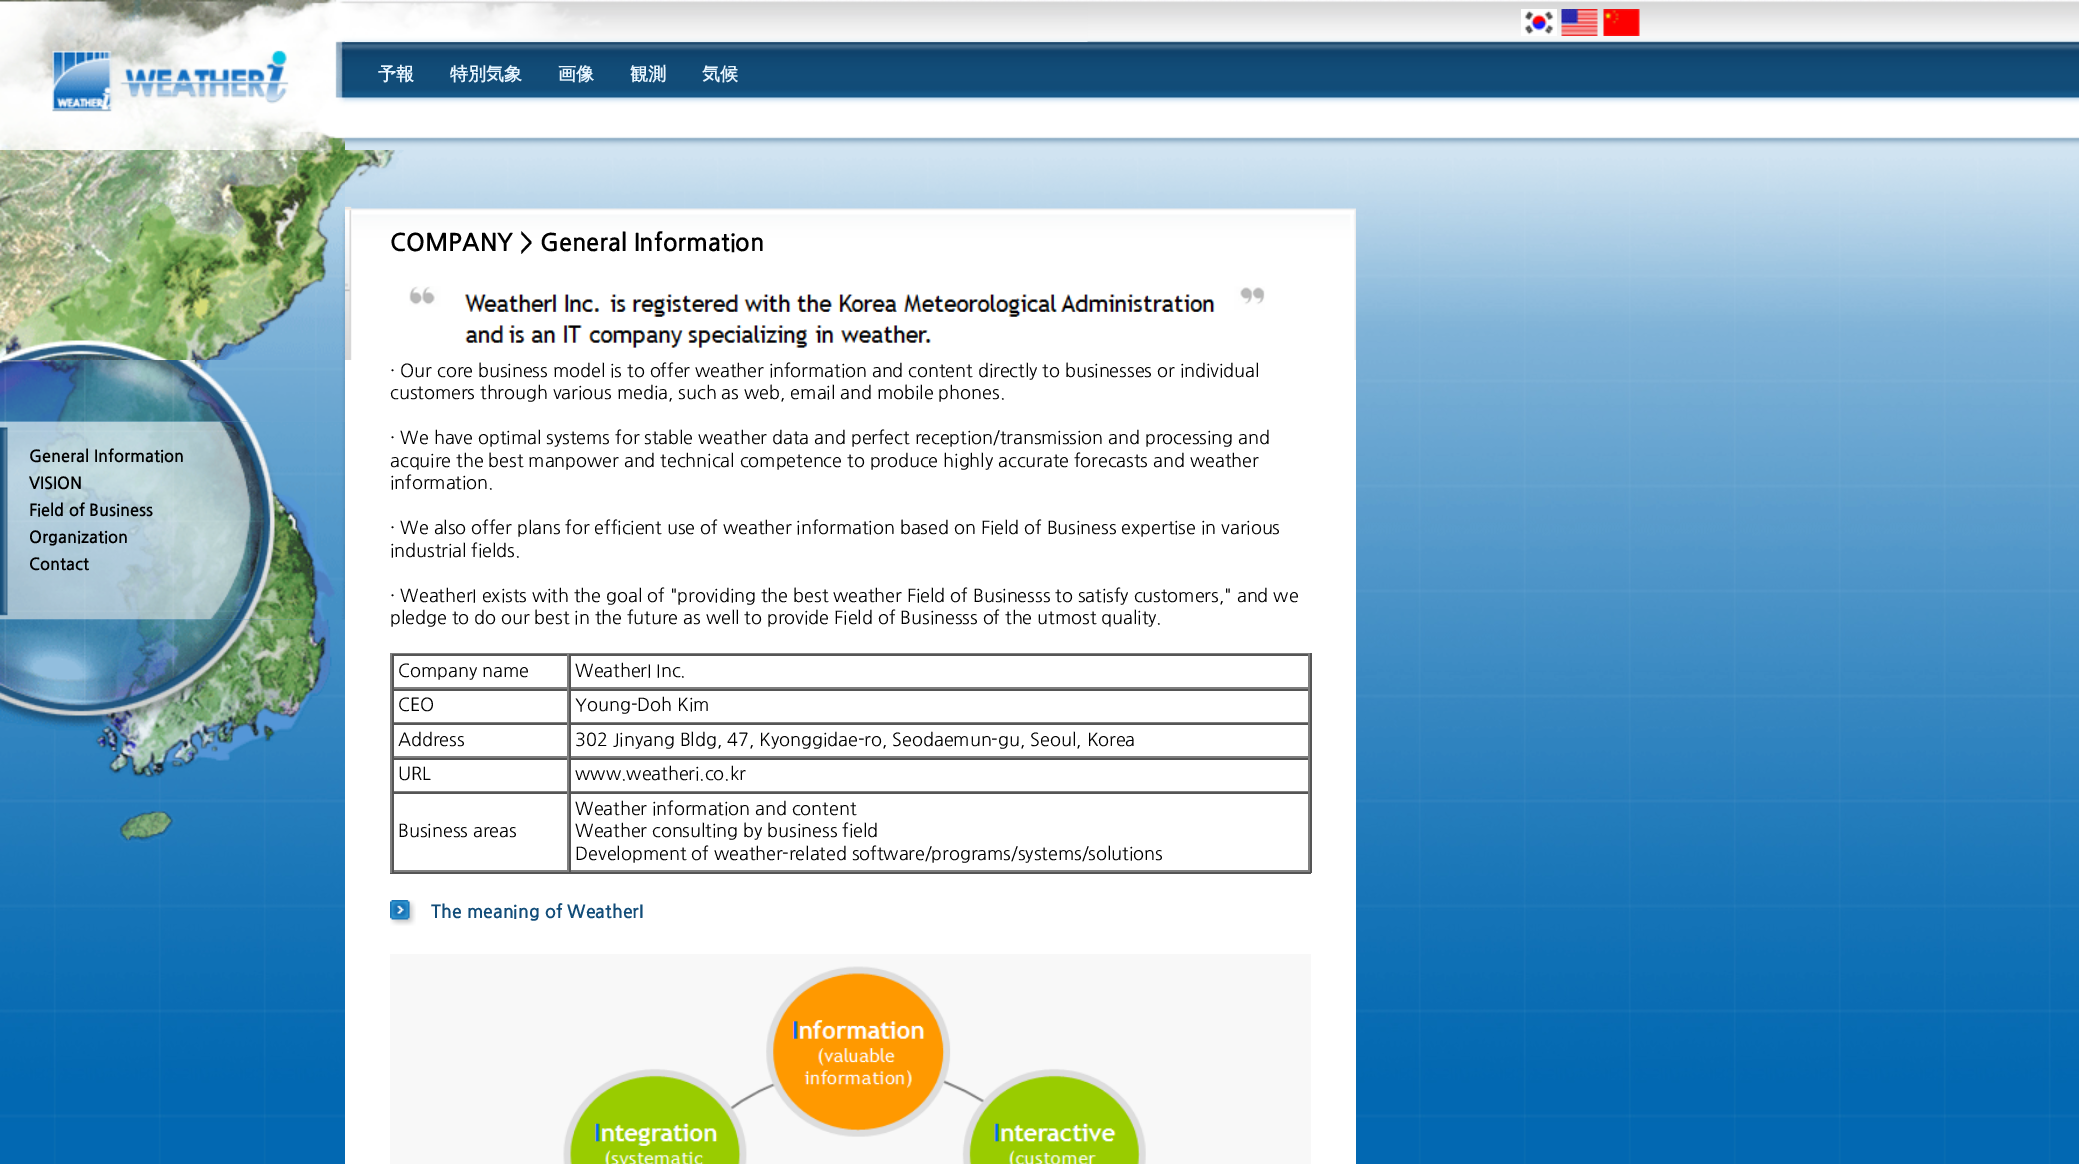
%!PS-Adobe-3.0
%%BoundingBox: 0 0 2079 1164
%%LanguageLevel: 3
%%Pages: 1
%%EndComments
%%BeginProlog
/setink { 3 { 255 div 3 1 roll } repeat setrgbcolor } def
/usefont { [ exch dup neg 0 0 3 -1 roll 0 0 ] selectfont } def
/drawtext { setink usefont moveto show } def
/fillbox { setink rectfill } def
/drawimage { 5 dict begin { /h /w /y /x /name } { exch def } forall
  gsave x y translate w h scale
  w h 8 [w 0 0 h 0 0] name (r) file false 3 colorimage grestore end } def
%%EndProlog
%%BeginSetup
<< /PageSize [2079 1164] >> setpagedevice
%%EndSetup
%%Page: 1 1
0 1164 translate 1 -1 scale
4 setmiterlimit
0 0 2079 1164 255 255 255 fillbox
(assets/img1.rgb) 345 0 1734 150 drawimage
(assets/img2.rgb) 0 0 345 150 drawimage
(assets/img3.rgb) 345 2 743 40 drawimage
(assets/img4.rgb) 1521 9 36 27 drawimage
(assets/img5.rgb) 1561 9 37 27 drawimage
(assets/img6.rgb) 1603 9 37 27 drawimage
(予報) 378 80 /WenQuanYiZenHei-Bold 18 231 245 255 drawtext
(特別気象) 450 80 /WenQuanYiZenHei-Bold 18 231 245 255 drawtext
(画像) 558 80 /WenQuanYiZenHei-Bold 18 231 245 255 drawtext
(観測) 630 80 /WenQuanYiZenHei-Bold 18 231 245 255 drawtext
(気候) 702 80 /WenQuanYiZenHei-Bold 18 231 245 255 drawtext
(assets/img7.rgb) 0 150 2079 1014 drawimage
(assets/img8.rgb) 0 150 345 210 drawimage
(assets/img10.rgb) 345 208 1011 152 drawimage
(assets/img9.rgb) 345 150 59 59 drawimage
(COMPANY > General Information) 390 251 /NanumGothic-Bold 24 0 0 0 drawtext
(assets/img11.rgb) 409 286 856 62 drawimage
(assets/img13.rgb) 0 421 345 199 drawimage
(assets/img12.rgb) 0 360 345 62 drawimage
(General Information) 29 462 /NanumGothic-Bold 16.5 0 0 0 drawtext
(VISION) 29 489 /NanumGothic-Bold 16.5 0 0 0 drawtext
(Field of Business) 29 516 /NanumGothic-Bold 16.5 0 0 0 drawtext
(Organization) 29 543 /NanumGothic-Bold 16.5 0 0 0 drawtext
(Contact) 29 570 /NanumGothic-Bold 16.5 0 0 0 drawtext
(assets/img14.rgb) 0 619 332 224 drawimage
345 360 1011 804 255 255 255 fillbox
(· Our core business model is to offer weather information and content directly to businesses or individual) 390 377 /NanumGothic-Regular 18 0 0 0 drawtext
(customers through various media, such as web, email and mobile phones.) 390 399 /NanumGothic-Regular 18 0 0 0 drawtext
(· We have optimal systems for stable weather data and perfect reception/transmission and processing and) 390 444 /NanumGothic-Regular 18 0 0 0 drawtext
(acquire the best manpower and technical competence to produce highly accurate forecasts and weather) 390 467 /NanumGothic-Regular 18 0 0 0 drawtext
(information.) 390 489 /NanumGothic-Regular 18 0 0 0 drawtext
(· We also offer plans for efficient use of weather information based on Field of Business expertise in various) 390 534 /NanumGothic-Regular 18 0 0 0 drawtext
(industrial fields.) 390 557 /NanumGothic-Regular 18 0 0 0 drawtext
(· WeatherI exists with the goal of "providing the best weather Field of Businesss to satisfy customers," and we) 390 602 /NanumGothic-Regular 18 0 0 0 drawtext
(pledge to do our best in the future as well to provide Field of Businesss of the utmost quality.) 390 624 /NanumGothic-Regular 18 0 0 0 drawtext
390 653 921 1 128 128 128 fillbox
1310 653 2 220 85 85 85 fillbox
390 872 921 2 85 85 85 fillbox
390 653 2 220 128 128 128 fillbox
392 654 918 2 85 85 85 fillbox
567 654 2 35 128 128 128 fillbox
392 687 177 2 128 128 128 fillbox
392 654 2 35 85 85 85 fillbox
(Company name) 398 677 /NanumGothic-Regular 18 0 0 0 drawtext
1308 654 2 35 128 128 128 fillbox
569 687 741 2 128 128 128 fillbox
569 654 2 35 85 85 85 fillbox
(WeatherI Inc.) 575 677 /NanumGothic-Regular 18 0 0 0 drawtext
392 689 918 2 85 85 85 fillbox
567 689 2 34 128 128 128 fillbox
392 722 177 1 128 128 128 fillbox
392 689 2 34 85 85 85 fillbox
(CEO) 398 711 /NanumGothic-Regular 18 0 0 0 drawtext
1308 689 2 34 128 128 128 fillbox
569 722 741 1 128 128 128 fillbox
569 689 2 34 85 85 85 fillbox
(Young-Doh Kim) 575 711 /NanumGothic-Regular 18 0 0 0 drawtext
392 723 918 2 85 85 85 fillbox
567 723 2 35 128 128 128 fillbox
392 756 177 2 128 128 128 fillbox
392 723 2 35 85 85 85 fillbox
(Address) 398 746 /NanumGothic-Regular 18 0 0 0 drawtext
1308 723 2 35 128 128 128 fillbox
569 756 741 2 128 128 128 fillbox
569 723 2 35 85 85 85 fillbox
(302 Jinyang Bldg, 47, Kyonggidae-ro, Seodaemun-gu, Seoul, Korea) 575 746 /NanumGothic-Regular 18 0 0 0 drawtext
392 758 918 2 85 85 85 fillbox
567 758 2 34 128 128 128 fillbox
392 791 177 1 128 128 128 fillbox
392 758 2 34 85 85 85 fillbox
(URL) 398 780 /NanumGothic-Regular 18 0 0 0 drawtext
1308 758 2 34 128 128 128 fillbox
569 791 741 1 128 128 128 fillbox
569 758 2 34 85 85 85 fillbox
(www.weatheri.co.kr) 575 780 /NanumGothic-Regular 18 0 0 0 drawtext
392 792 918 2 85 85 85 fillbox
567 792 2 80 128 128 128 fillbox
392 870 177 2 128 128 128 fillbox
392 792 2 80 85 85 85 fillbox
(Business areas) 398 837 /NanumGothic-Regular 18 0 0 0 drawtext
1308 792 2 80 128 128 128 fillbox
569 870 741 2 128 128 128 fillbox
569 792 2 80 85 85 85 fillbox
(Weather information and content) 575 815 /NanumGothic-Regular 18 0 0 0 drawtext
(Weather consulting by business field) 575 837 /NanumGothic-Regular 18 0 0 0 drawtext
(Development of weather-related software/programs/systems/solutions) 575 860 /NanumGothic-Regular 18 0 0 0 drawtext
(assets/img15.rgb) 390 900 26 26 drawimage
(The meaning of WeatherI) 431 918 /NanumGothic-Bold 18 18 77 121 drawtext
(assets/img16.rgb) 390 954 921 210 drawimage
showpage
%%EOF
